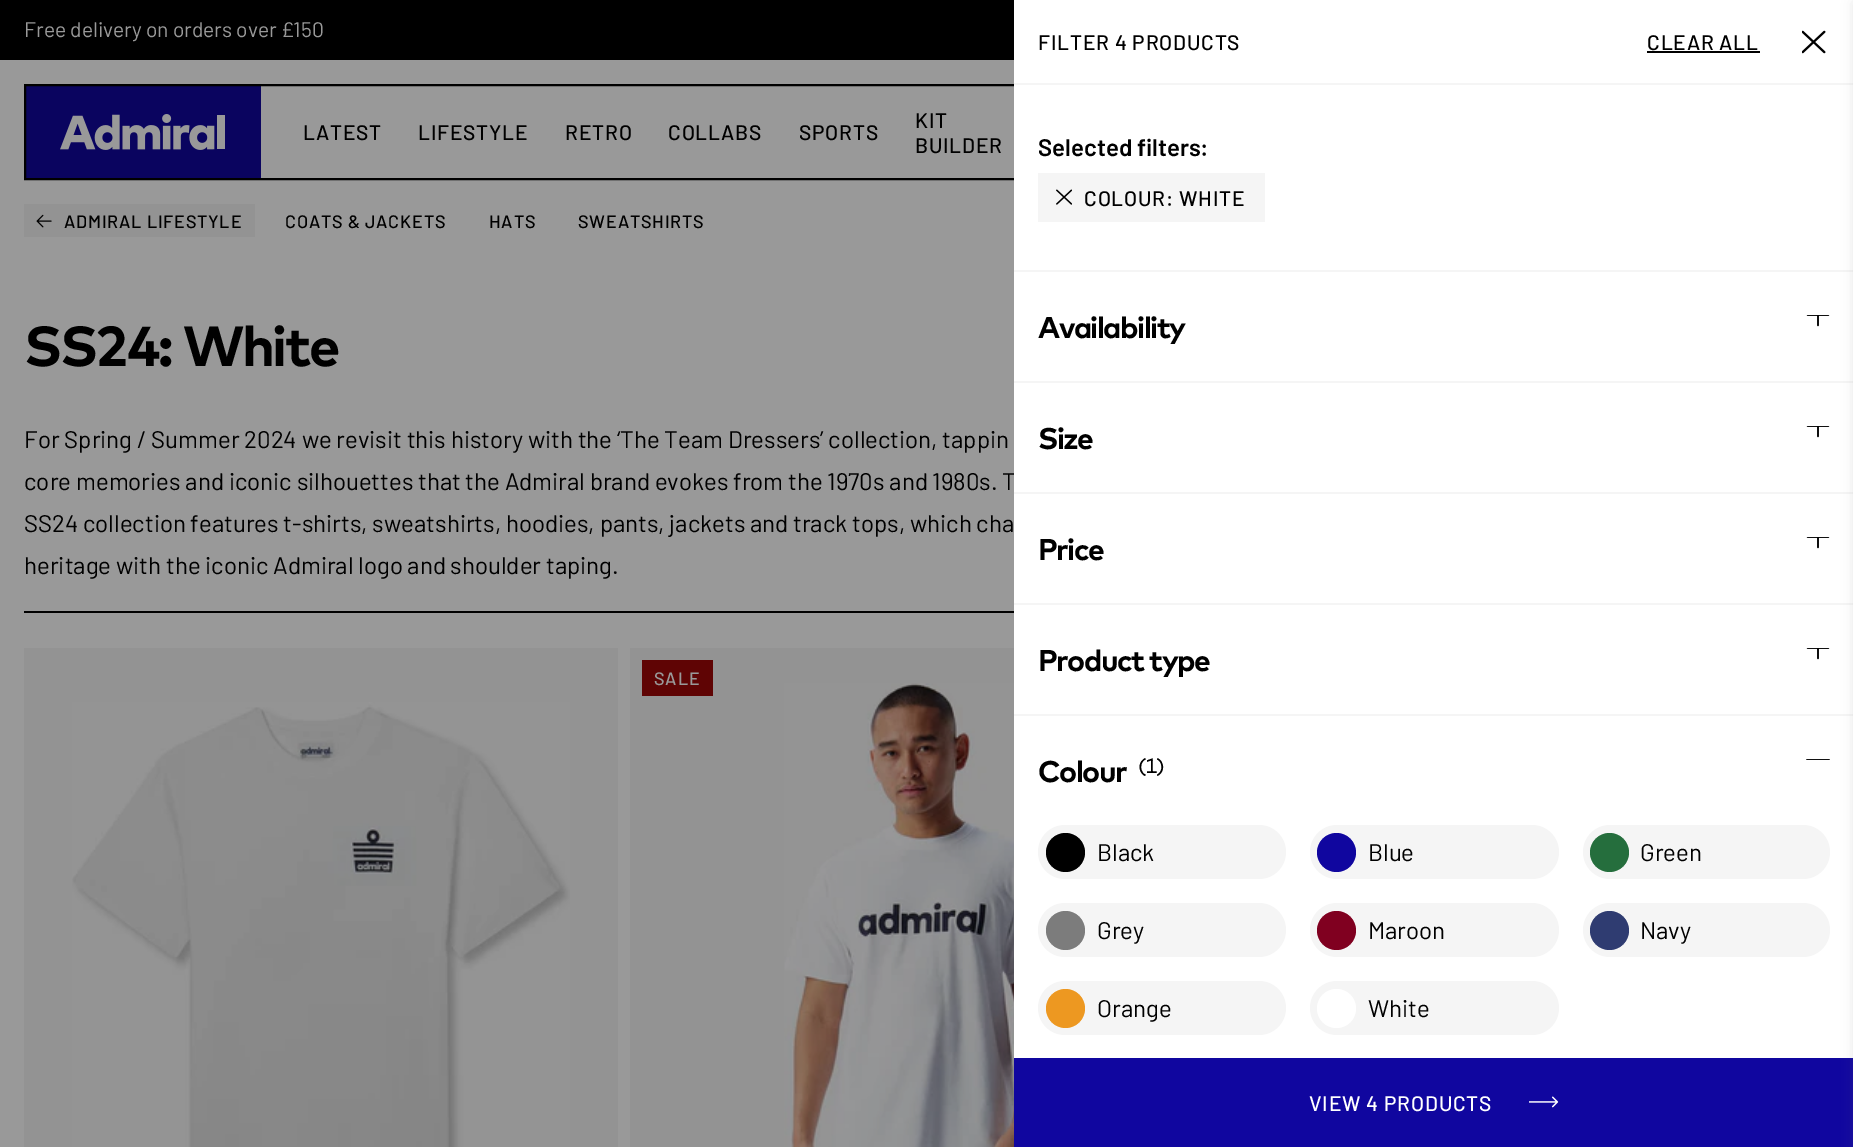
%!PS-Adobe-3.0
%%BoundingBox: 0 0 1853 1147
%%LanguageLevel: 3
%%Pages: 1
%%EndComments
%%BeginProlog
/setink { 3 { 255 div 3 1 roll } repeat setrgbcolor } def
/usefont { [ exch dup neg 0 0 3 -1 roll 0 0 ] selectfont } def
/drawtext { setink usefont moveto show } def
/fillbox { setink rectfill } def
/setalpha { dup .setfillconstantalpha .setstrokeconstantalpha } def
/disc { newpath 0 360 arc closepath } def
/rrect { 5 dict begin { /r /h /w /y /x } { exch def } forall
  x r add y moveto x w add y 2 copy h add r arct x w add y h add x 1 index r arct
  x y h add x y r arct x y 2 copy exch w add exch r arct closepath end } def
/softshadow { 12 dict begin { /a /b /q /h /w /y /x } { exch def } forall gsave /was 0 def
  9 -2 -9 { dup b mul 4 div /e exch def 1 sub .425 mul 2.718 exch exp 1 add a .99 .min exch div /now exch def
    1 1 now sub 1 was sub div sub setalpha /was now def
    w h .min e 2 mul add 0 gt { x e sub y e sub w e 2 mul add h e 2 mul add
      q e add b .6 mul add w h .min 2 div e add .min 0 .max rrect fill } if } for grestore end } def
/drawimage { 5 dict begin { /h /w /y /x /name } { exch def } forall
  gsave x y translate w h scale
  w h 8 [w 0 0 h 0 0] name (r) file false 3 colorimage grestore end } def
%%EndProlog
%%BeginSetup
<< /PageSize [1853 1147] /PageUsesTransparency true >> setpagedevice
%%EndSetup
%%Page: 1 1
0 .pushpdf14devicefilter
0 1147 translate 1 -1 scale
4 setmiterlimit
0 0 1853 1147 153 153 153 fillbox
0 0 1014 60 0 0 0 fillbox
(Free delivery on orders over £150) 24 37 /Barlow-Regular 21 153 153 153 drawtext
24 204 231 33 147 147 147 fillbox
(assets/img1.rgb) 36 214 16 14 drawimage
/Barlow-Medium 18 usefont
0 0 0 setink
64 228 moveto 0.8 0 (ADMIRAL LIFESTYLE) ashow
285 228 moveto 0.8 0 (COATS & JACKETS) ashow
489 228 moveto 0.8 0 (HATS) ashow
578 228 moveto 0.8 0 (SWEATSHIRTS) ashow
24 611 990 2 0 0 0 fillbox
/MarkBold-Bold 56.25 usefont
24 366 moveto -2.4 0 (SS24: White) ashow
(For Spring / Summer 2024 we revisit this history with the ‘The Team Dressers’ collection, tappin) 24 448 /Barlow-Regular 24 0 0 0 drawtext
(core memories and iconic silhouettes that the Admiral brand evokes from the 1970s and 1980s. T) 24 490 /Barlow-Regular 24 0 0 0 drawtext
(SS24 collection features t-shirts, sweatshirts, hoodies, pants, jackets and track tops, which cha) 24 532 /Barlow-Regular 24 0 0 0 drawtext
(heritage with the iconic Admiral logo and shoulder taping.) 24 574 /Barlow-Regular 24 0 0 0 drawtext
24 648 594 499 147 147 147 fillbox
(assets/img2.rgb) 72 702 498 445 drawimage
630 648 384 499 147 147 147 fillbox
(assets/img3.rgb) 784 683 230 464 drawimage
642 660 71 36 95 4 4 fillbox
/Barlow-Medium 18 usefont
153 153 153 setink
654 685 moveto 0.8 0 (SALE) ashow
26 86 235 92 10 4 95 fillbox
(assets/img9.rgb) 60 114 165 36 drawimage
0 0 0 setink
2 setlinewidth
25 85 1804 94 rectstroke
1014 0 839 1058 255 255 255 fillbox
1014 83 839 2 245 245 245 fillbox
/Barlow-Medium 21 usefont
0 0 0 setink
1038 50 moveto 0.8 0 (FILTER 4 PRODUCTS) ashow
1647 50 moveto 0.8 0 (CLEAR ALL) ashow
1647 51 113 2 0 0 0 fillbox
(assets/img4.rgb) 1802 30 24 24 drawimage
1014 270 839 2 245 245 245 fillbox
(Selected filters:) 1038 156 /Barlow-SemiBold 24 0 0 0 drawtext
1038 173 227 49 245 245 245 fillbox
(assets/img5.rgb) 1056 189 16 16 drawimage
/Barlow-Medium 21 usefont
0 0 0 setink
1084 206 moveto 0.8 0 (COLOUR: WHITE) ashow
1014 381 839 2 245 245 245 fillbox
/MarkBold-Bold 30 usefont
0 0 0 setink
1038 338 moveto -1.5 0 (Availability) ashow
(assets/img6.rgb) 1806 315 24 12 drawimage
1014 492 839 2 245 245 245 fillbox
0 0 0 setink
1038 449 moveto -1.5 0 (Size) ashow
(assets/img6.rgb) 1806 426 24 12 drawimage
1014 603 839 2 245 245 245 fillbox
0 0 0 setink
1038 560 moveto -1.5 0 (Price) ashow
(assets/img6.rgb) 1806 537 24 12 drawimage
1014 714 839 2 245 245 245 fillbox
0 0 0 setink
1038 671 moveto -1.5 0 (Product type) ashow
(assets/img6.rgb) 1806 648 24 12 drawimage
/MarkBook-Regular 21 usefont
1138 773 moveto -1.5 0 (\(1\)) ashow
(assets/img7.rgb) 1806 759 24 1 drawimage
/MarkBold-Bold 30 usefont
1038 782 moveto -1.5 0 (Colour) ashow
245 245 245 setink
1038 825 248 54 27 rrect fill
0 0 0 setink
1065.5 852.5 19.5 disc fill
(Black) 1097 861 /Barlow-Regular 24 0 0 0 drawtext
245 245 245 setink
1310 825 249 54 27 rrect fill
16 6 159 setink
1336.5 852.5 19.5 disc fill
(Blue) 1368 861 /Barlow-Regular 24 0 0 0 drawtext
245 245 245 setink
1583 825 247 54 27 rrect fill
37 110 61 setink
1609.5 852.5 19.5 disc fill
(Green) 1640 861 /Barlow-Regular 24 0 0 0 drawtext
245 245 245 setink
1038 903 248 54 27 rrect fill
124 124 124 setink
1065.5 930.5 19.5 disc fill
(Grey) 1097 939 /Barlow-Regular 24 0 0 0 drawtext
245 245 245 setink
1310 903 249 54 27 rrect fill
128 0 32 setink
1336.5 930.5 19.5 disc fill
(Maroon) 1368 939 /Barlow-Regular 24 0 0 0 drawtext
245 245 245 setink
1583 903 247 54 27 rrect fill
47 60 113 setink
1609.5 930.5 19.5 disc fill
(Navy) 1640 939 /Barlow-Regular 24 0 0 0 drawtext
245 245 245 setink
1038 981 248 54 27 rrect fill
237 152 33 setink
1065.5 1008.5 19.5 disc fill
(Orange) 1097 1017 /Barlow-Regular 24 0 0 0 drawtext
245 245 245 setink
1310 981 249 54 27 rrect fill
255 255 255 setink
1336.5 1008.5 19.5 disc fill
(White) 1368 1017 /Barlow-Regular 24 0 0 0 drawtext
1014 1058 839 89 16 6 159 fillbox
/Barlow-Medium 21 usefont
255 255 255 setink
1309 1111 moveto 0.8 0 (VIEW 4 PRODUCTS) ashow
(assets/img8.rgb) 1529 1096 30 12 drawimage
99 99 99 setink
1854 3 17 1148 0 6 0.2 softshadow
0 0 0 setink
303 140 moveto 0.8 0 (LATEST) ashow
418 140 moveto 0.8 0 (LIFESTYLE) ashow
565 140 moveto 0.8 0 (RETRO) ashow
668 140 moveto 0.8 0 (COLLABS) ashow
799 140 moveto 0.8 0 (SPORTS) ashow
915 128 moveto 0.8 0 (KIT) ashow
915 153 moveto 0.8 0 (BUILDER) ashow
.poppdf14devicefilter showpage
%%EOF
